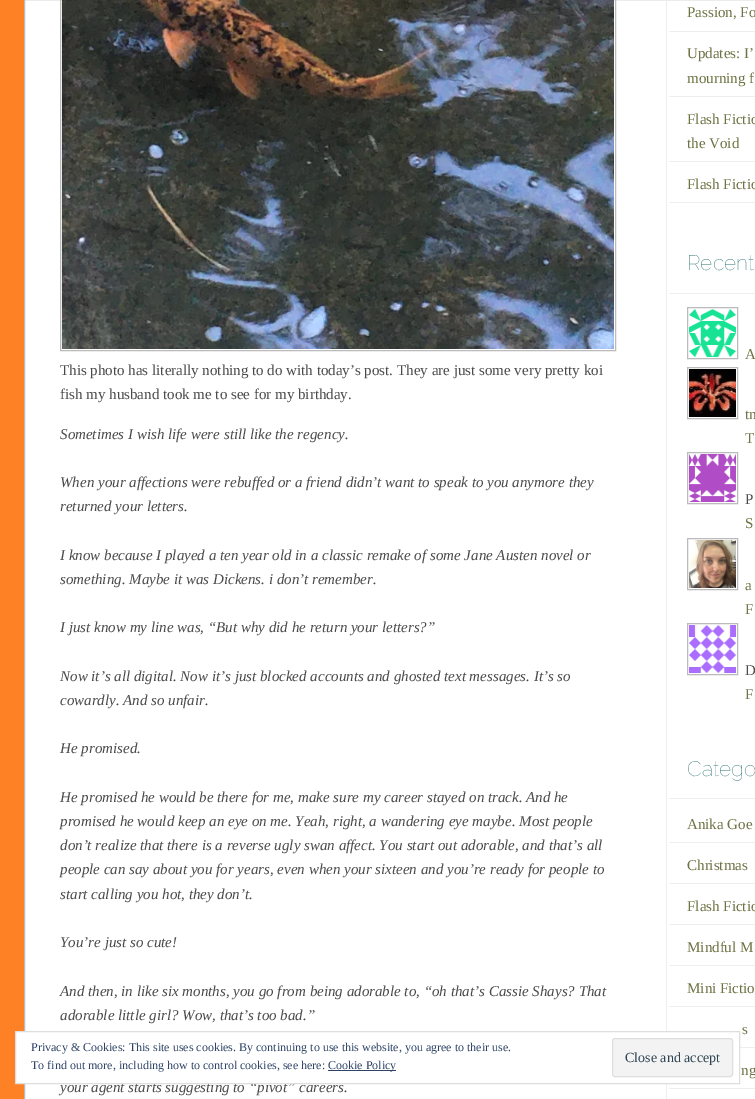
%!PS-Adobe-3.0
%%BoundingBox: 0 0 755 1099
%%LanguageLevel: 3
%%Pages: 1
%%EndComments
%%BeginProlog
/setink { 3 { 255 div 3 1 roll } repeat setrgbcolor } def
/usefont { [ exch dup neg 0 0 3 -1 roll 0 0 ] selectfont } def
/drawtext { setink usefont moveto show } def
/fillbox { setink rectfill } def
/rrect { 5 dict begin { /r /h /w /y /x } { exch def } forall
  x r add y moveto x w add y 2 copy h add r arct x w add y h add x 1 index r arct
  x y h add x y r arct x y 2 copy exch w add exch r arct closepath end } def
/drawimage { 5 dict begin { /h /w /y /x /name } { exch def } forall
  gsave x y translate w h scale
  w h 8 [w 0 0 h 0 0] name (r) file false 3 colorimage grestore end } def
%%EndProlog
%%BeginSetup
<< /PageSize [755 1099] >> setpagedevice
%%EndSetup
%%Page: 1 1
0 1099 translate 1 -1 scale
4 setmiterlimit
0 0 755 1099 255 129 37 fillbox
255 255 255 setink
24.5 -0.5 moveto 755.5 -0.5 lineto 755.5 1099.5 lineto 24.5 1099.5 lineto closepath gsave fill grestore
187 187 187 setink
stroke
60.5 -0.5 555 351 rectstroke
(assets/img1.rgb) 62 0 552 349 drawimage
(This photo has literally nothing to do with today’s post. They are just some very pretty koi) 60 375 /LiberationSerif-Regular 15 74 74 74 drawtext
(fish my husband took me to see for my birthday.) 60 399 /LiberationSerif-Regular 15 74 74 74 drawtext
(Sometimes I wish life were still like the regency.) 60 439 /LiberationSerif-Italic 15 74 74 74 drawtext
(When your affections were rebuffed or a friend didn’t want to speak to you anymore they) 60 487 /LiberationSerif-Italic 15 74 74 74 drawtext
(returned your letters.) 60 511 /LiberationSerif-Italic 15 74 74 74 drawtext
(I know because I played a ten year old in a classic remake of some Jane Austen novel or) 60 560 /LiberationSerif-Italic 15 74 74 74 drawtext
(something. Maybe it was Dickens. i don’t remember.) 60 584 /LiberationSerif-Italic 15 74 74 74 drawtext
(I just know my line was, “But why did he return your letters?”) 60 632 /LiberationSerif-Italic 15 74 74 74 drawtext
(Now it’s all digital. Now it’s just blocked accounts and ghosted text messages. It’s so) 60 681 /LiberationSerif-Italic 15 74 74 74 drawtext
(cowardly. And so unfair.) 60 705 /LiberationSerif-Italic 15 74 74 74 drawtext
(He promised.) 60 753 /LiberationSerif-Italic 15 74 74 74 drawtext
(He promised he would be there for me, make sure my career stayed on track. And he) 60 802 /LiberationSerif-Italic 15 74 74 74 drawtext
(promised he would keep an eye on me. Yeah, right, a wandering eye maybe. Most people) 60 826 /LiberationSerif-Italic 15 74 74 74 drawtext
(don’t realize that there is a reverse ugly swan affect. You start out adorable, and that’s all) 60 850 /LiberationSerif-Italic 15 74 74 74 drawtext
(people can say about you for years, even when your sixteen and you’re ready for people to) 60 874 /LiberationSerif-Italic 15 74 74 74 drawtext
(start calling you hot, they don’t.) 60 899 /LiberationSerif-Italic 15 74 74 74 drawtext
(You’re just so cute!) 60 947 /LiberationSerif-Italic 15 74 74 74 drawtext
(And then, in like six months, you go from being adorable to, “oh that’s Cassie Shays? That) 60 996 /LiberationSerif-Italic 15 74 74 74 drawtext
(adorable little girl? Wow, that’s too bad.”) 60 1020 /LiberationSerif-Italic 15 74 74 74 drawtext
(your agent starts suggesting to “pivot” careers.) 60 1092 /LiberationSerif-Italic 15 74 74 74 drawtext
666 0 1 1099 238 238 238 fillbox
669 31 86 1 238 238 238 fillbox
(Passion, Fo) 687 17 /LiberationSerif-Regular 15 110 115 67 drawtext
669 96 86 1 238 238 238 fillbox
(Updates: I’) 687 58 /LiberationSerif-Regular 15 110 115 67 drawtext
(mourning f) 687 83 /LiberationSerif-Regular 15 110 115 67 drawtext
669 161 86 1 238 238 238 fillbox
(Flash Fictio) 687 124 /LiberationSerif-Regular 15 110 115 67 drawtext
(the Void) 687 148 /LiberationSerif-Regular 15 110 115 67 drawtext
669 202 86 1 238 238 238 fillbox
(Flash Fictio) 687 189 /LiberationSerif-Regular 15 110 115 67 drawtext
669 293 86 1 238 238 238 fillbox
(Recent) 687 270 /Raleway-Thin 21 52 121 119 drawtext
187 187 187 setink
687.5 307.5 50 51 rectstroke
(assets/img2.rgb) 689 309 47 48 drawimage
(A) 745 359 /LiberationSerif-Regular 15 110 115 67 drawtext
187 187 187 setink
687.5 367.5 50 51 rectstroke
(assets/img3.rgb) 689 369 47 48 drawimage
(tn) 745 419 /LiberationSerif-Regular 15 110 115 67 drawtext
(T) 745 443 /LiberationSerif-Regular 15 110 115 67 drawtext
187 187 187 setink
687.5 452.5 50 51 rectstroke
(assets/img4.rgb) 689 454 47 48 drawimage
(P) 745 504 /LiberationSerif-Regular 15 74 74 74 drawtext
(S) 745 528 /LiberationSerif-Regular 15 110 115 67 drawtext
187 187 187 setink
687.5 538.5 50 51 rectstroke
(assets/img5.rgb) 689 540 47 48 drawimage
(a) 745 590 /LiberationSerif-Regular 15 110 115 67 drawtext
(F) 745 614 /LiberationSerif-Regular 15 110 115 67 drawtext
187 187 187 setink
687.5 623.5 50 51 rectstroke
(assets/img6.rgb) 689 625 47 48 drawimage
(D) 745 675 /LiberationSerif-Regular 15 74 74 74 drawtext
(F) 745 699 /LiberationSerif-Regular 15 110 115 67 drawtext
669 798 86 1 238 238 238 fillbox
(Catego) 687 776 /Raleway-Thin 21 52 121 119 drawtext
669 842 86 1 238 238 238 fillbox
(Anika Goe) 687 829 /LiberationSerif-Regular 15 110 115 67 drawtext
669 883 86 1 238 238 238 fillbox
(Christmas) 687 870 /LiberationSerif-Regular 15 110 115 67 drawtext
669 924 86 1 238 238 238 fillbox
(Flash Fictio) 687 911 /LiberationSerif-Regular 15 110 115 67 drawtext
669 965 86 1 238 238 238 fillbox
(Mindful M) 687 952 /LiberationSerif-Regular 15 110 115 67 drawtext
669 1006 86 1 238 238 238 fillbox
(Mini Fictio) 687 993 /LiberationSerif-Regular 15 110 115 67 drawtext
740 1047 15 1 238 238 238 fillbox
(s) 742 1034 /LiberationSerif-Regular 15 110 115 67 drawtext
669 1088 86 1 238 238 238 fillbox
(ng) 741 1075 /LiberationSerif-Regular 15 110 115 67 drawtext
16 1032 651 51 255 255 255 fillbox
222 222 222 setink
15.5 1031.5 724 52 rectstroke
(Privacy & Cookies: This site uses cookies. By continuing to use this website, you agree to their use.) 31 1051 /LiberationSerif-Regular 12 46 68 103 drawtext
(To find out more, including how to control cookies, see here:) 31 1069 /LiberationSerif-Regular 12 46 68 103 drawtext
328 1070 68 1 46 68 103 fillbox
(Cookie Policy) 328 1069 /LiberationSerif-Regular 12 46 68 103 drawtext
243 243 243 setink
612.5 1038.5 120 38 2.5 rrect gsave fill grestore
222 222 222 setink
stroke
(Close and accept) 625 1062 /LiberationSerif-Regular 14 46 68 83 drawtext
showpage
%%EOF
